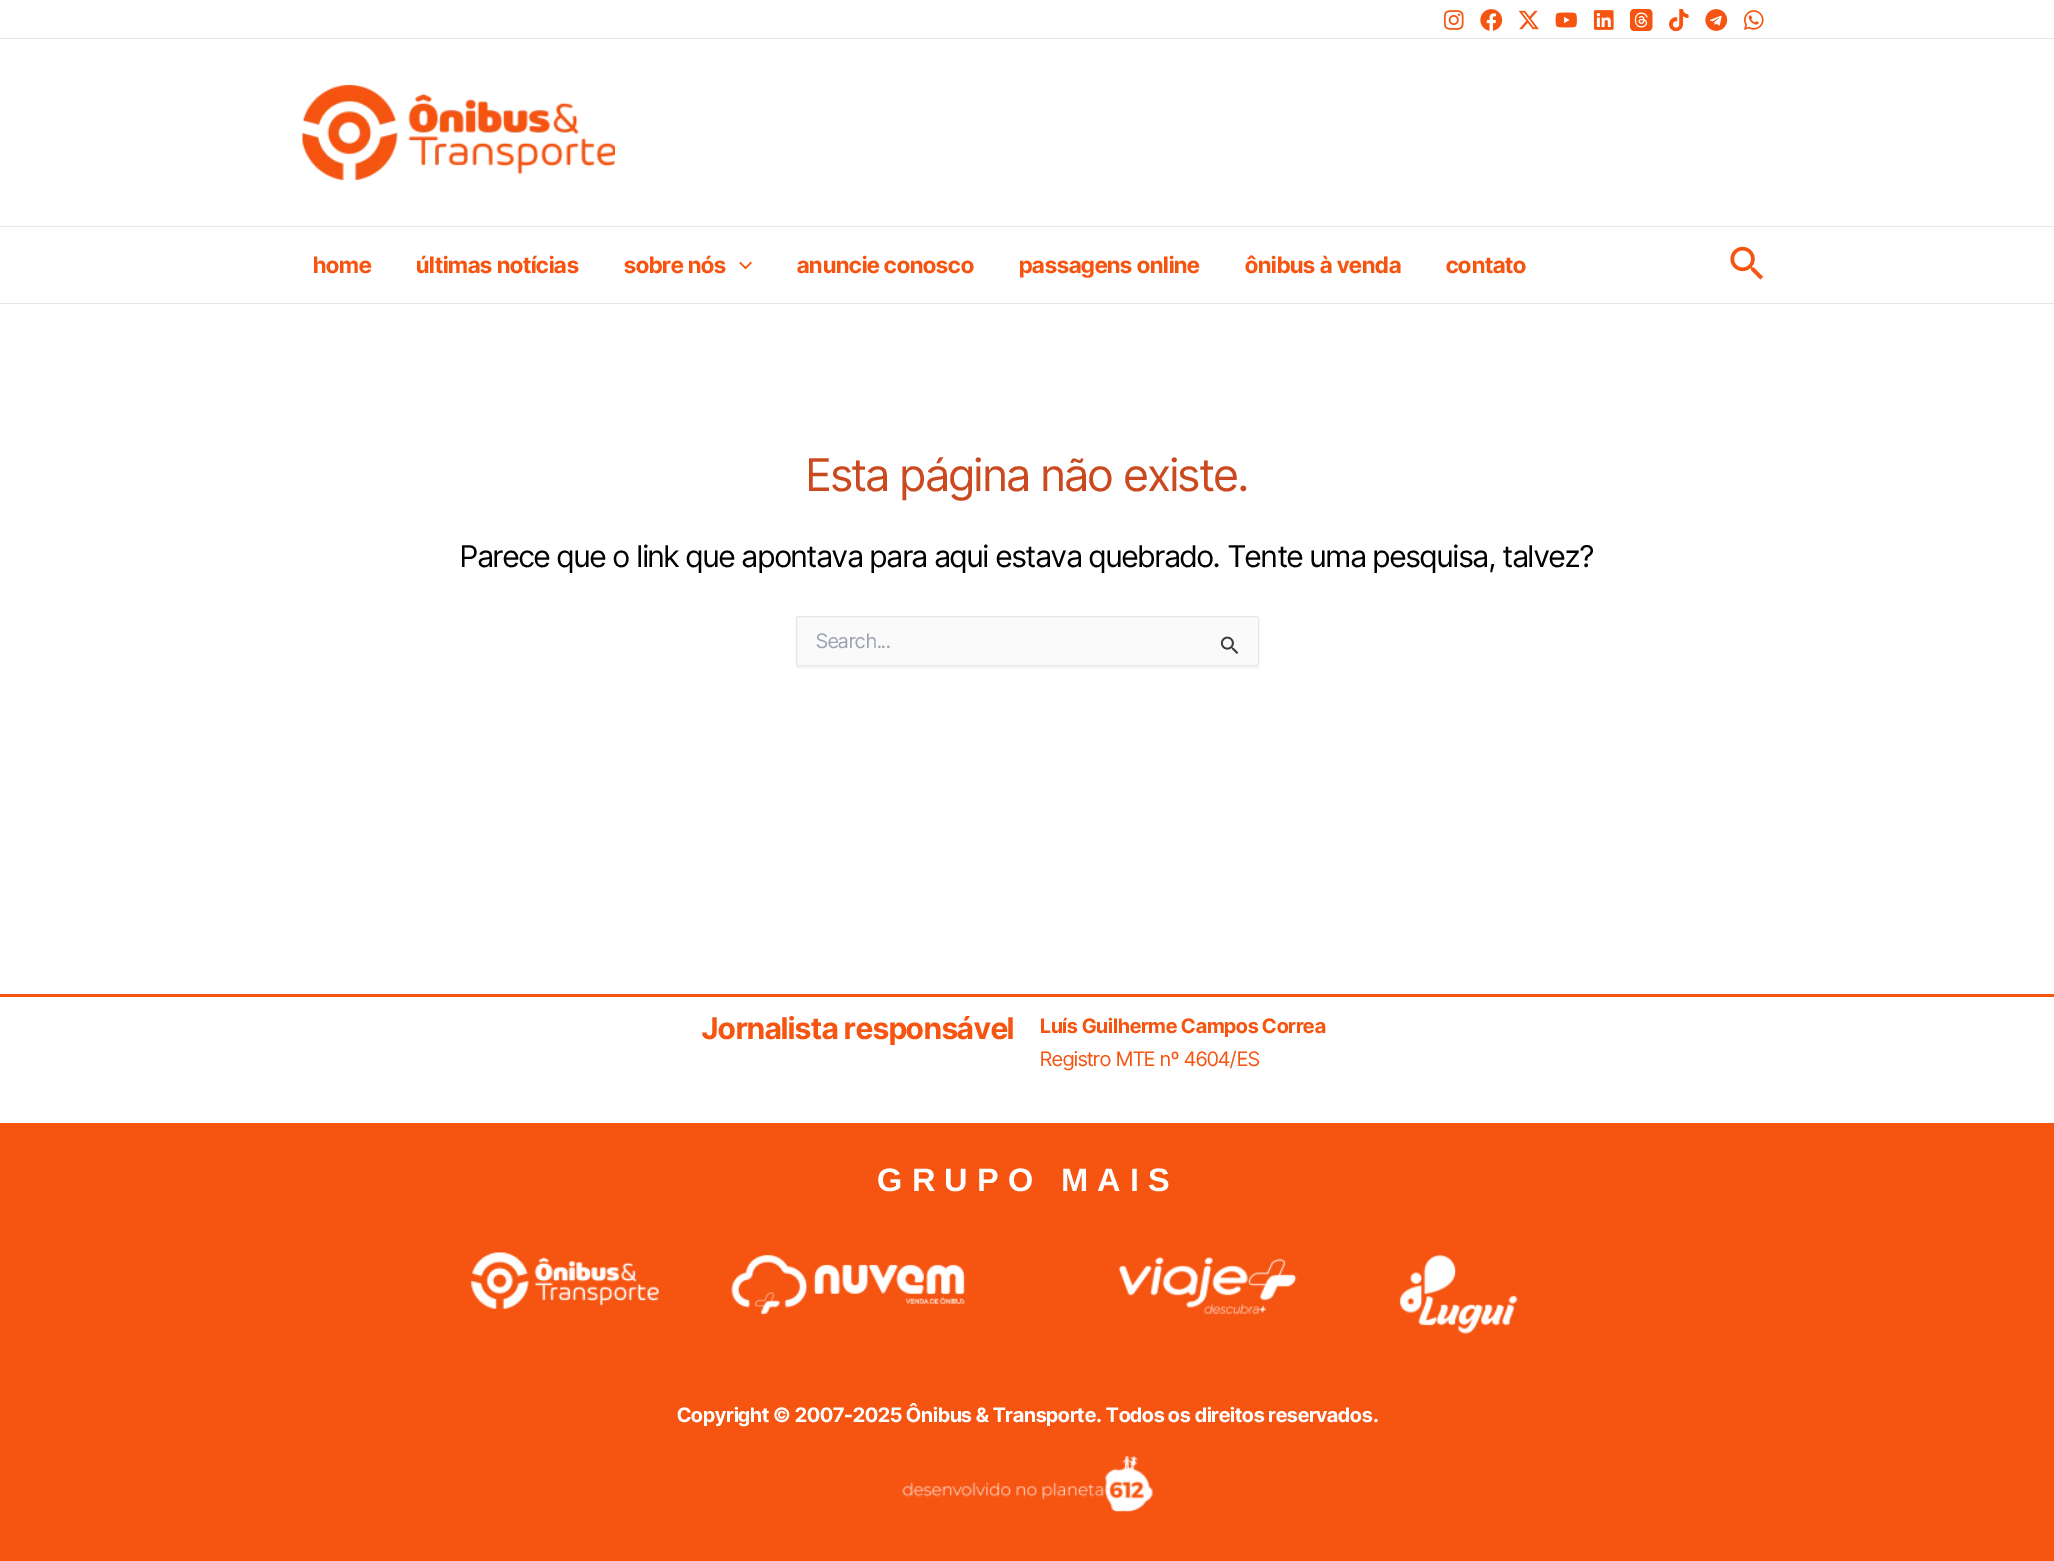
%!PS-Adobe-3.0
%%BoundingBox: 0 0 2054 1561
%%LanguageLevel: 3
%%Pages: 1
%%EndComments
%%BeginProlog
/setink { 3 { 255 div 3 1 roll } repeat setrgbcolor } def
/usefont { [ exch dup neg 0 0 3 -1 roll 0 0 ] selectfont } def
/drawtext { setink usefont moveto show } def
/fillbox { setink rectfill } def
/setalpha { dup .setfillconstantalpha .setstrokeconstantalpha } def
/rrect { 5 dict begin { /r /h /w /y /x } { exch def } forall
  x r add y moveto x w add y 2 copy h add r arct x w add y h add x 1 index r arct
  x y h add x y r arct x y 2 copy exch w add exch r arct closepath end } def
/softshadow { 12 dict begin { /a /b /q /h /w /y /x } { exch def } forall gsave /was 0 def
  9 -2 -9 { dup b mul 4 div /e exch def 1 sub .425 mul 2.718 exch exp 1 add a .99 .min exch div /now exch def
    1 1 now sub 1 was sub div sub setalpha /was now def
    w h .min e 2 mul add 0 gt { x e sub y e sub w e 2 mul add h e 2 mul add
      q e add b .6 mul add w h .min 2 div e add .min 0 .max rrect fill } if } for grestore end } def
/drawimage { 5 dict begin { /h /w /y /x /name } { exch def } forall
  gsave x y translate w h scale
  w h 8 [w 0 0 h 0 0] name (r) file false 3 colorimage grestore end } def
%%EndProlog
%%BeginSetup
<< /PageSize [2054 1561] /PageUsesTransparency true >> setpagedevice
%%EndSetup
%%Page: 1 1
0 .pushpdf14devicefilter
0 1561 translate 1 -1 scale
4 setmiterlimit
0 0 2054 1561 255 255 255 fillbox
0 38 2054 1 231 231 231 fillbox
(assets/img1.rgb) 1443 10 21 20 drawimage
(assets/img2.rgb) 1480 9 23 22 drawimage
(assets/img3.rgb) 1518 10 21 20 drawimage
(assets/img4.rgb) 1555 12 22 16 drawimage
(assets/img5.rgb) 1593 10 21 20 drawimage
(assets/img6.rgb) 1630 9 23 22 drawimage
(assets/img7.rgb) 1669 9 20 22 drawimage
(assets/img8.rgb) 1705 9 23 22 drawimage
(assets/img9.rgb) 1744 10 20 20 drawimage
0 226 2054 1 231 231 231 fillbox
(assets/img10.rgb) 302 85 313 95 drawimage
0 303 2054 1 231 231 231 fillbox
(home) 313 273 /InterTight-Bold 22.5 246 84 17 drawtext
(últimas notícias) 416 273 /InterTight-Bold 22.5 246 84 17 drawtext
(sobre nós) 624 273 /InterTight-Bold 22.5 246 84 17 drawtext
(assets/img11.rgb) 739 261 13 9 drawimage
(anuncie conosco) 797 273 /InterTight-Bold 22.5 246 84 17 drawtext
(passagens online) 1019 273 /InterTight-Bold 22.5 246 84 17 drawtext
(ônibus à venda) 1245 273 /InterTight-Bold 22.5 246 84 17 drawtext
(contato) 1446 273 /InterTight-Bold 22.5 246 84 17 drawtext
(assets/img12.rgb) 1730 246 33 34 drawimage
(Esta página não existe.) 806 491 /InterTight-Regular 45 203 73 30 drawtext
(Parece que o link que apontava para aqui estava quebrado. Tente uma pesquisa, talvez?) 460 567 /InterTight-Regular 30 0 0 0 drawtext
796 618 463 50 2.5 1 0.05 softshadow
250 250 250 setink
796.5 616.5 462 49 2 rrect gsave fill grestore
231 231 231 setink
stroke
(Search...) 816 648 /InterTight-Regular 20 156 163 175 drawtext
(assets/img13.rgb) 1220 636 18 18 drawimage
0 994 2054 3 246 84 17 fillbox
(Jornalista responsável) 702 1039 /InterTight-Bold 30 246 84 17 drawtext
(Luís Guilherme Campos Correa) 1040 1033 /InterTight-Bold 20 246 84 17 drawtext
(Registro MTE nº 4604/ES) 1040 1066 /InterTight-Regular 20 246 84 17 drawtext
0 1123 2054 438 246 84 17 fillbox
/LiberationSans-Bold 32.5 usefont
255 255 255 setink
877 1191 moveto 9.25 0 (GRUPO MAIS) ashow
(assets/img14.rgb) 471 1252 188 57 drawimage
(assets/img15.rgb) 731 1254 235 61 drawimage
(assets/img16.rgb) 1118 1257 179 57 drawimage
(assets/img17.rgb) 1399 1254 119 80 drawimage
(Copyright © 2007-2025 Ônibus & Transporte. Todos os direitos reservados.) 677 1422 /InterTight-Bold 20 255 255 255 drawtext
(assets/img18.rgb) 902 1456 251 56 drawimage
.poppdf14devicefilter showpage
%%EOF
